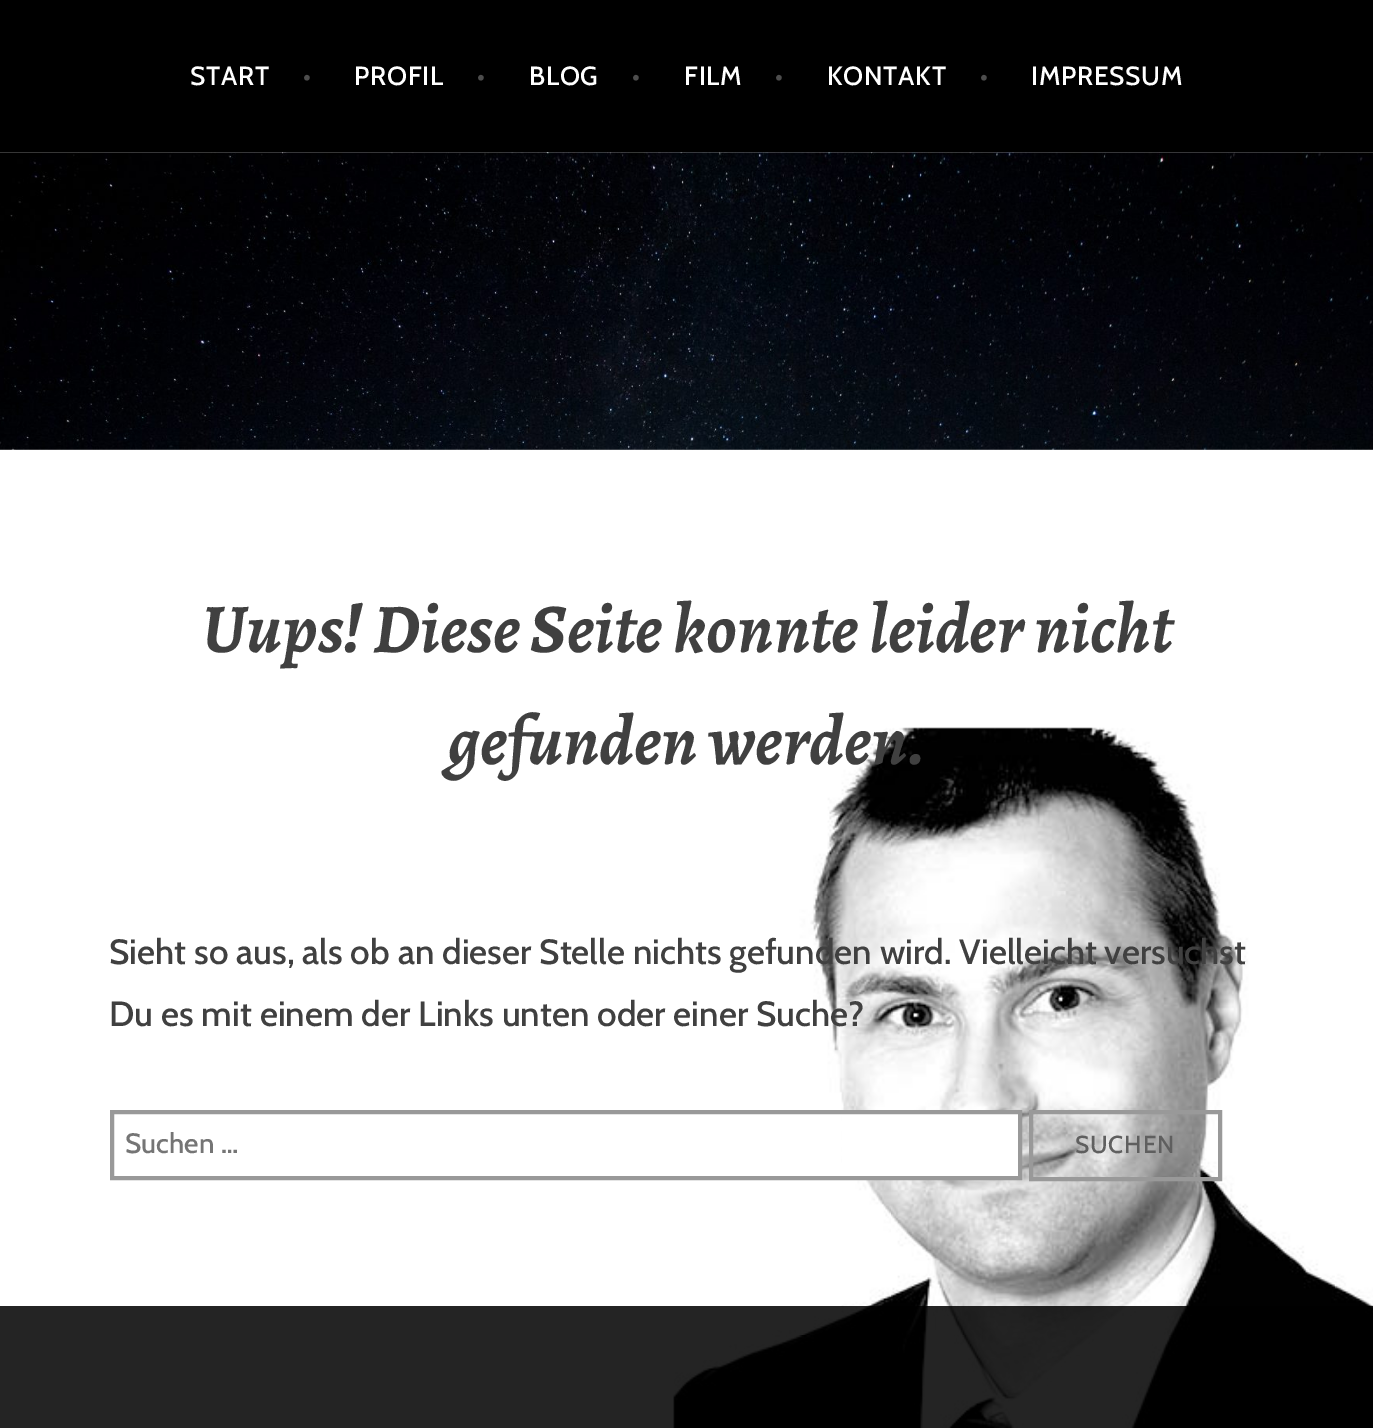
%!PS-Adobe-3.0
%%BoundingBox: 0 0 1373 1428
%%LanguageLevel: 3
%%Pages: 1
%%EndComments
%%BeginProlog
/setink { 3 { 255 div 3 1 roll } repeat setrgbcolor } def
/usefont { [ exch dup neg 0 0 3 -1 roll 0 0 ] selectfont } def
/drawtext { setink usefont moveto show } def
/fillbox { setink rectfill } def
/setalpha { dup .setfillconstantalpha .setstrokeconstantalpha } def
/drawimage { 5 dict begin { /h /w /y /x /name } { exch def } forall
  gsave x y translate w h scale
  w h 8 [w 0 0 h 0 0] name (r) file false 3 colorimage grestore end } def
%%EndProlog
%%BeginSetup
<< /PageSize [1373 1428] /PageUsesTransparency true >> setpagedevice
%%EndSetup
%%Page: 1 1
0 .pushpdf14devicefilter
0 1428 translate 1 -1 scale
4 setmiterlimit
0 0 1373 1428 255 255 255 fillbox
(assets/img1.rgb) 673 727 700 701 drawimage
0 0 1373 152 0 0 0 fillbox
/Cabin-Medium 26.25 usefont
255 255 255 setink
190 85 moveto 0.75 0 (START) ashow
77 77 77 setink
303 85 moveto 0.75 0 (•) ashow
255 255 255 setink
354 85 moveto 0.75 0 (PROFIL) ashow
77 77 77 setink
477 85 moveto 0.75 0 (•) ashow
255 255 255 setink
529 85 moveto 0.75 0 (BLOG) ashow
77 77 77 setink
632 85 moveto 0.75 0 (•) ashow
255 255 255 setink
684 85 moveto 0.75 0 (FILM) ashow
77 77 77 setink
775 85 moveto 0.75 0 (•) ashow
255 255 255 setink
827 85 moveto 0.75 0 (KONTAKT) ashow
77 77 77 setink
980 85 moveto 0.75 0 (•) ashow
255 255 255 setink
1031 85 moveto 0.75 0 (IMPRESSUM) ashow
(assets/img2.rgb) 0 152 1373 298 drawimage
(Uups! Diese Seite konnte leider nicht) 202 652 /Alegreya-BoldItalic 70 64 64 64 drawtext
(gefunden werden.) 447 764 /Alegreya-BoldItalic 70 64 64 64 drawtext
(Sieht so aus, als ob an dieser Stelle nichts gefunden wird. Vielleicht versuchst) 109 964 /Cabin-Medium 35 64 64 64 drawtext
(Du es mit einem der Links unten oder einer Suche?) 109 1026 /Cabin-Medium 35 64 64 64 drawtext
842 1114 176 62 255 255 255 fillbox
153 153 153 setink
4 setlinewidth
112 1112 908 66 rectstroke
(Suchen …) 125 1153 /Cabin-Medium 28 117 117 117 drawtext
153 153 153 setink
1031 1112 189 67 rectstroke
/Cabin-Medium 24.5 usefont
95 95 95 setink
1075 1153 moveto 0.75 0 (SUCHEN) ashow
0.86 setalpha
0 1306 1373 122 0 0 0 fillbox
.poppdf14devicefilter showpage
%%EOF
